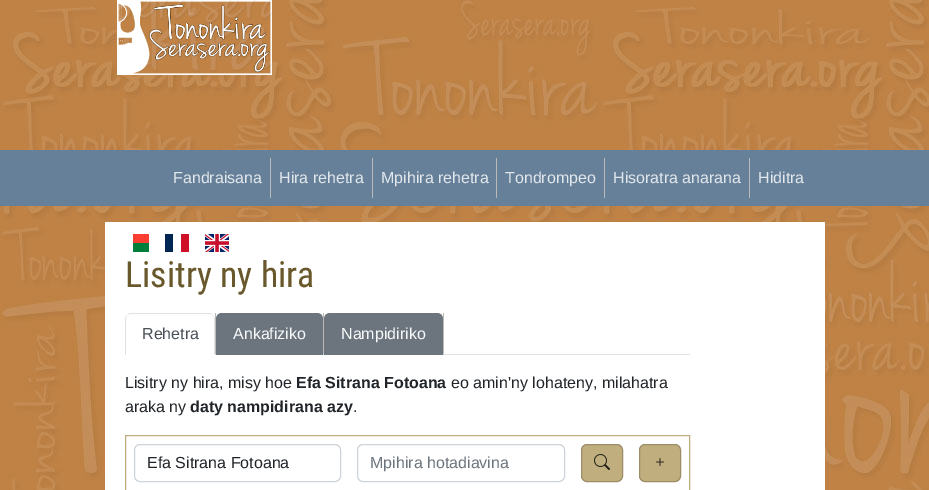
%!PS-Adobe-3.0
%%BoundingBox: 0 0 929 490
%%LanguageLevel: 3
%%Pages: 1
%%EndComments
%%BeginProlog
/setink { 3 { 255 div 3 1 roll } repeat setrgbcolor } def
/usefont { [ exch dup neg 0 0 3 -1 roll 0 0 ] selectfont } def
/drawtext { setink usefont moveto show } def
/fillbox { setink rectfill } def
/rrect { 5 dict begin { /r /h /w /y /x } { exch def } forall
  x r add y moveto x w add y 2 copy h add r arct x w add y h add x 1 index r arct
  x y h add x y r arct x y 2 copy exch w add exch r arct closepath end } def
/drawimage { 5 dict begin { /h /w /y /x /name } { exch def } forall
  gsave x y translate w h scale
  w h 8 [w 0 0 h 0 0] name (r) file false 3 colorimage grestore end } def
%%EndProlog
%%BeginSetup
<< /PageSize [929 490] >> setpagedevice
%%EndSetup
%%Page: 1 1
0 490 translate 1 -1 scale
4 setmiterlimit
0 0 929 490 255 255 255 fillbox
(assets/img1.rgb) 0 0 929 490 drawimage
(assets/img2.rgb) 117 0 155 75 drawimage
0 150 929 56 102 128 153 fillbox
270 158 1 40 186 186 186 fillbox
(Fandraisana) 173 183 /LiberationSans-Regular 16 226 231 236 drawtext
372 158 1 40 186 186 186 fillbox
(Hira rehetra) 279 183 /LiberationSans-Regular 16 226 231 236 drawtext
496 158 1 40 186 186 186 fillbox
(Mpihira rehetra) 381 183 /LiberationSans-Regular 16 226 231 236 drawtext
604 158 1 40 186 186 186 fillbox
(Tondrompeo) 505 183 /LiberationSans-Regular 16 226 231 236 drawtext
749 158 1 40 186 186 186 fillbox
(Hisoratra anarana) 613 183 /LiberationSans-Regular 16 226 231 236 drawtext
(Hiditra) 758 183 /LiberationSans-Regular 16 226 231 236 drawtext
105 222 720 268 255 255 255 fillbox
133 234 16 9 252 61 50 fillbox
133 243 16 9 0 126 58 fillbox
165 234 8 18 0 38 84 fillbox
181 234 8 18 206 17 38 fillbox
(assets/img3.rgb) 205 234 24 18 drawimage
(Lisitry ny hira) 125 287 /RobotoCondensed-Regular 36 105 88 43 drawtext
215 354 475 1 222 226 230 fillbox
215 313 1 41 186 186 186 fillbox
222 226 230 setink
131 313 moveto 130 313 128 314 127 315 curveto 130 314 lineto 210 314 lineto 213 315 lineto 212 314 210 313 209 313 curveto closepath fill
215 355 moveto 215 319 lineto 215 318 214 316 213 315 curveto 214 316 214 318 214 319 curveto 214 354 lineto closepath fill
255 255 255 setink
215 355 moveto 214 354 lineto 126 354 lineto 125 355 lineto closepath fill
222 226 230 setink
125 355 moveto 126 354 lineto 126 319 lineto 126 318 126 316 127 315 curveto 126 316 125 318 125 319 curveto closepath fill
(Rehetra) 142 339 /LiberationSans-Regular 16 73 80 87 drawtext
323 313 1 41 186 186 186 fillbox
108 117 125 setink
222 313 moveto 317 313 lineto 320.5 313 323 315.5 323 319 curveto 323 355 lineto 216 355 lineto 216 319 lineto 216 315.5 218.5 313 222 313 curveto closepath fill
(Ankafiziko) 233 339 /LiberationSans-Regular 16 248 249 250 drawtext
443 313 1 41 186 186 186 fillbox
108 117 125 setink
330 313 moveto 437 313 lineto 440.5 313 443 315.5 443 319 curveto 443 355 lineto 324 355 lineto 324 319 lineto 324 315.5 326.5 313 330 313 curveto closepath fill
(Nampidiriko) 341 339 /LiberationSans-Regular 16 248 249 250 drawtext
(Lisitry ny hira, misy hoe) 125 388 /LiberationSans-Regular 16 33 37 41 drawtext
(Efa Sitrana Fotoana) 296 388 /LiberationSans-Bold 16 33 37 41 drawtext
(eo amin'ny lohateny, milahatra) 451 388 /LiberationSans-Regular 16 33 37 41 drawtext
(araka ny) 125 412 /LiberationSans-Regular 16 33 37 41 drawtext
(daty nampidirana azy) 190 412 /LiberationSans-Bold 16 33 37 41 drawtext
(.) 353 412 /LiberationSans-Regular 16 33 37 41 drawtext
192 174 127 setink
125.5 435.5 564 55 rectstroke
206 212 218 setink
134.5 444.5 206 37 5.5 rrect stroke
(Efa Sitrana Fotoana) 147 468 /LiberationSans-Regular 16 33 37 41 drawtext
206 212 218 setink
357.5 444.5 207 37 5.5 rrect stroke
(Mpihira hotadiavina) 370 468 /LiberationSans-Regular 16 108 117 125 drawtext
192 174 127 setink
581.5 444.5 41 37 5.5 rrect gsave fill grestore
158 142 103 setink
stroke
(assets/img4.rgb) 594 454 16 16 drawimage
192 174 127 setink
639.5 444.5 41 37 5.5 rrect gsave fill grestore
158 142 103 setink
stroke
(assets/img5.rgb) 656 458 8 8 drawimage
showpage
%%EOF
